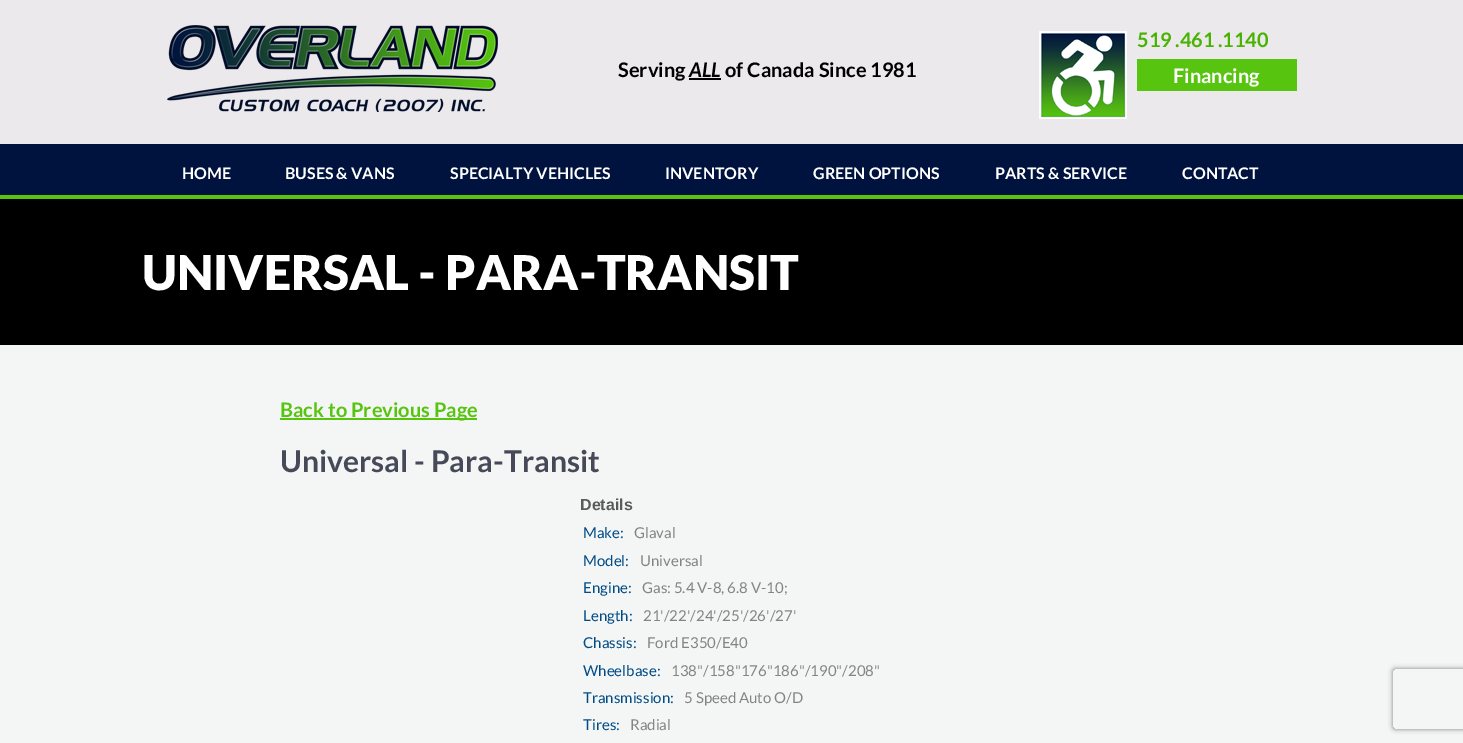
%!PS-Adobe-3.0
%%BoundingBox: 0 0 1463 743
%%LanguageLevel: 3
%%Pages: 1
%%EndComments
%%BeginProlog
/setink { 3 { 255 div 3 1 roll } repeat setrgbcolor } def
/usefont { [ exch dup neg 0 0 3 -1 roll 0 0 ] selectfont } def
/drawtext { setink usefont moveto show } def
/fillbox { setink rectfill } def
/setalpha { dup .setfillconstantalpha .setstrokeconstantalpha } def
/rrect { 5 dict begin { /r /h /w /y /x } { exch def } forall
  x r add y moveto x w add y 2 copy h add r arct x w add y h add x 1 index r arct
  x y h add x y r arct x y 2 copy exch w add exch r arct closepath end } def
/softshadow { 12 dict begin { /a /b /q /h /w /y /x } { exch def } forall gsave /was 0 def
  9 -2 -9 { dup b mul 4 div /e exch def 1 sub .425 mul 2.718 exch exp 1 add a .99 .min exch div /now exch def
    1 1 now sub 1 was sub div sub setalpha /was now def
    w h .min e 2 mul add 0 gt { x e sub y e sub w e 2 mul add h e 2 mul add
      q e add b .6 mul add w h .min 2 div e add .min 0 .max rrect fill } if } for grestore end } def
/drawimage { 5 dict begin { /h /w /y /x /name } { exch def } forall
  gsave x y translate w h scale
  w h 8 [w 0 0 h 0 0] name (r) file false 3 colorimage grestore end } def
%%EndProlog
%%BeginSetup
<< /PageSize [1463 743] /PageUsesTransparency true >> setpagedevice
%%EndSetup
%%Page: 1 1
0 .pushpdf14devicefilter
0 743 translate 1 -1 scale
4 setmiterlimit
0 0 1463 743 244 245 245 fillbox
0 0 1463 144 235 233 235 fillbox
(assets/img1.rgb) 167 25 331 87 drawimage
(Serving) 618 77 /Lato-Bold 20 0 0 0 drawtext
(ALL) 689 77 /Lato-BoldItalic 20 0 0 0 drawtext
689 78 32 2 0 0 0 fillbox
(of Canada Since 1981) 725 77 /Lato-Bold 20 0 0 0 drawtext
(assets/img2.rgb) 1039 31 88 88 drawimage
72 179 2 setink
1137 47 moveto -0.1 0 (519 .461 .1140) ashow
1137 59 160 32 87 196 15 fillbox
(Financing) 1173 83 /Lato-Bold 20 255 255 255 drawtext
0 144 1463 51 0 19 62 fillbox
0 195 1463 4 87 196 15 fillbox
(HOME) 182 179 /Lato-Bold 16 255 255 255 drawtext
(BUSES & VANS) 285 179 /Lato-Bold 16 255 255 255 drawtext
(SPECIALTY VEHICLES) 450 179 /Lato-Bold 16 255 255 255 drawtext
(INVENTORY) 665 179 /Lato-Bold 16 255 255 255 drawtext
(GREEN OPTIONS) 813 179 /Lato-Bold 16 255 255 255 drawtext
(PARTS & SERVICE) 995 179 /Lato-Bold 16 255 255 255 drawtext
(CONTACT) 1182 179 /Lato-Bold 16 255 255 255 drawtext
0 199 1463 146 0 0 0 fillbox
(UNIVERSAL - PARA-TRANSIT) 142 290 /Lato-Black 48 255 255 255 drawtext
280 418 197 2 87 196 15 fillbox
(Back to Previous Page) 280 417 /Lato-Bold 20 87 196 15 drawtext
(Universal - Para-Transit) 280 472 /Lato-Bold 30 70 74 88 drawtext
(Details) 580 510 /LiberationSans-Bold 16 91 90 90 drawtext
(Make:) 583 538 /Lato-Regular 15 0 75 133 drawtext
(Glaval) 634 538 /Lato-Regular 15 132 132 132 drawtext
(Model:) 583 566 /Lato-Regular 15 0 75 133 drawtext
(Universal) 640 566 /Lato-Regular 15 132 132 132 drawtext
(Engine:) 583 593 /Lato-Regular 15 0 75 133 drawtext
(Gas: 5.4 V-8, 6.8 V-10;) 642 593 /Lato-Regular 15 132 132 132 drawtext
(Length:) 583 621 /Lato-Regular 15 0 75 133 drawtext
(21'/22'/24'/25'/26'/27') 643 621 /Lato-Regular 15 132 132 132 drawtext
(Chassis:) 583 648 /Lato-Regular 15 0 75 133 drawtext
(Ford E350/E40) 647 648 /Lato-Regular 15 132 132 132 drawtext
(Wheelbase:) 583 676 /Lato-Regular 15 0 75 133 drawtext
(138"/158"176"186"/190"/208") 671 676 /Lato-Regular 15 132 132 132 drawtext
(Transmission:) 583 703 /Lato-Regular 15 0 75 133 drawtext
(5 Speed Auto O/D) 684 703 /Lato-Regular 15 132 132 132 drawtext
(Tires:) 583 730 /Lato-Regular 15 0 75 133 drawtext
(Radial) 630 730 /Lato-Regular 15 132 132 132 drawtext
gsave
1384 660 moveto 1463 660 lineto 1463 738 lineto 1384 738 lineto closepath 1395 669 moveto 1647 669 lineto 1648 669 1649 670 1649 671 curveto 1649 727 lineto 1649 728 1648 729 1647 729 curveto 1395 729 lineto 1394 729 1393 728 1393 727 curveto 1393 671 lineto 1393 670 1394 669 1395 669 curveto closepath eoclip newpath
128 128 128 setink
1393 669 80 60 2 2.5 1 softshadow
grestore
.poppdf14devicefilter showpage
%%EOF
